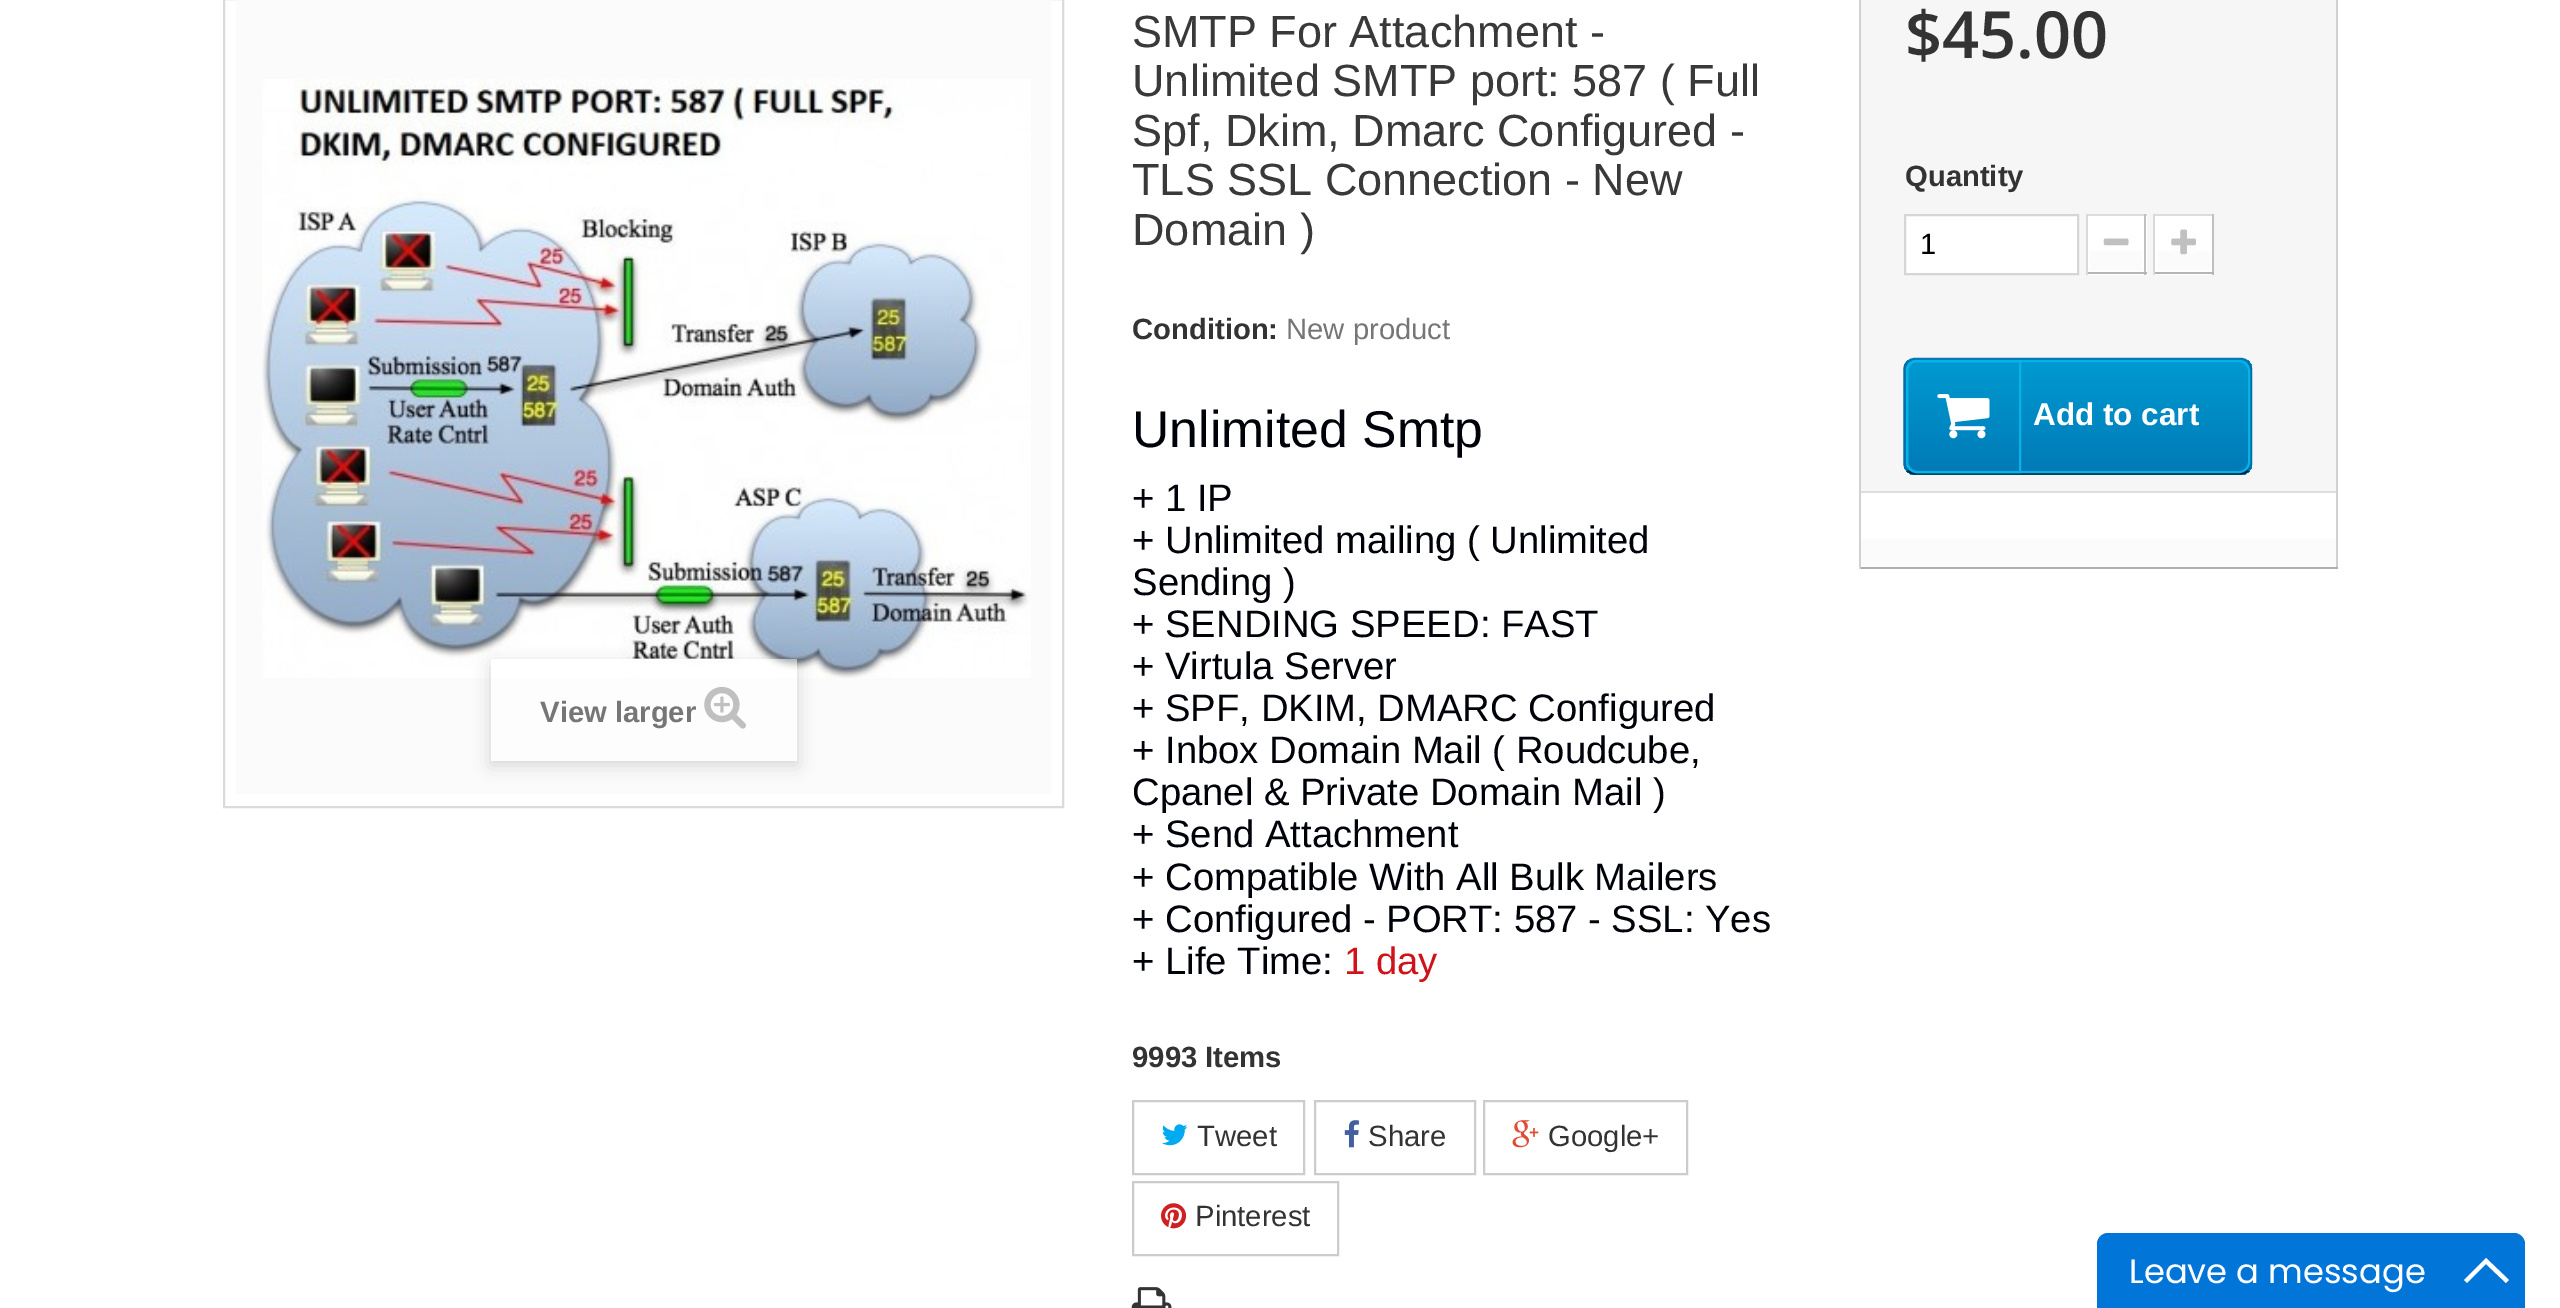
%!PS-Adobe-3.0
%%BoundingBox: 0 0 2560 1308
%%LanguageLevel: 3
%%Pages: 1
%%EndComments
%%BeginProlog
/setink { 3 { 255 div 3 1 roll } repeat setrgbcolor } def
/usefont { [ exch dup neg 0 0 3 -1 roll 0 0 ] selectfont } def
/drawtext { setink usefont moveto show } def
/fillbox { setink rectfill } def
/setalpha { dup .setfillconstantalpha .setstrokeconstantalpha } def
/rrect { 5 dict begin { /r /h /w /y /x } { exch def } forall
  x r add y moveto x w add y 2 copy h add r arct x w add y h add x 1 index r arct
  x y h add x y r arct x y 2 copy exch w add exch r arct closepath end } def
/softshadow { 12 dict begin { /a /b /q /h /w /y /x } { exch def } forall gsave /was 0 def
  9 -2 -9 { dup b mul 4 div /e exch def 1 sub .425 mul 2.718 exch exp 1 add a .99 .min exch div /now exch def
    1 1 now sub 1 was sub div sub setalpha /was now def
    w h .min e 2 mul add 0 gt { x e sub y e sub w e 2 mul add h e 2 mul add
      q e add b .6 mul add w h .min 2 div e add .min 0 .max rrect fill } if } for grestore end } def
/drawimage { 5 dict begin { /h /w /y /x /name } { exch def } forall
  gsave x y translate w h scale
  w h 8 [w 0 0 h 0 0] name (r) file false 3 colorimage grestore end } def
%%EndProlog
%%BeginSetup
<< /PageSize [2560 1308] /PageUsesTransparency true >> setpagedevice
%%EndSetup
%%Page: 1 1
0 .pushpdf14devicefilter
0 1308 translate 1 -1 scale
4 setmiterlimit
0 0 2560 1308 255 255 255 fillbox
219 219 219 setink
2 setlinewidth
224 -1 839 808 rectstroke
236 0 815 794 251 251 251 fillbox
(assets/img1.rgb) 262 79 769 599 drawimage
gsave
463 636 moveto 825 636 lineto 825 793 lineto 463 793 lineto closepath 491 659 moveto 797 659 lineto 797 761 lineto 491 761 lineto closepath eoclip newpath
0 0 0 setink
491 664 306 101 0 9 0.16 softshadow
grestore
0.5 setalpha
491 659 306 102 255 255 255 fillbox
1 setalpha
(View larger) 540 722 /LiberationSans-Bold 29.25 119 118 118 drawtext
(assets/img2.rgb) 704 686 42 43 drawimage
(SMTP For Attachment -) 1132 47 /LiberationSans-Regular 45 58 57 57 drawtext
(Unlimited SMTP port: 587 \( Full) 1132 96 /LiberationSans-Regular 45 58 57 57 drawtext
(Spf, Dkim, Dmarc Configured -) 1132 146 /LiberationSans-Regular 45 58 57 57 drawtext
(TLS SSL Connection - New) 1132 195 /LiberationSans-Regular 45 58 57 57 drawtext
(Domain \)) 1132 245 /LiberationSans-Regular 45 58 57 57 drawtext
(Condition:) 1132 339 /LiberationSans-Bold 29.25 51 51 51 drawtext
(New product) 1286 339 /LiberationSans-Regular 29.25 119 118 118 drawtext
(Unlimited Smtp) 1132 447 /LiberationSans-Regular 51.75 0 2 10 drawtext
(+ 1 IP) 1132 511 /LiberationSans-Regular 38.25 0 2 10 drawtext
(+ Unlimited mailing \( Unlimited) 1132 553 /LiberationSans-Regular 38.25 0 2 10 drawtext
(Sending \)) 1132 595 /LiberationSans-Regular 38.25 0 2 10 drawtext
(+ SENDING SPEED: FAST) 1132 637 /LiberationSans-Regular 38.25 0 2 10 drawtext
(+ Virtula Server) 1132 679 /LiberationSans-Regular 38.25 0 2 10 drawtext
(+ SPF, DKIM, DMARC Configured) 1132 721 /LiberationSans-Regular 38.25 0 2 10 drawtext
(+ Inbox Domain Mail \( Roudcube,) 1132 763 /LiberationSans-Regular 38.25 0 2 10 drawtext
(Cpanel & Private Domain Mail \)) 1132 805 /LiberationSans-Regular 38.25 0 2 10 drawtext
(+ Send Attachment) 1132 847 /LiberationSans-Regular 38.25 0 2 10 drawtext
(+ Compatible With All Bulk Mailers) 1132 890 /LiberationSans-Regular 38.25 0 2 10 drawtext
(+ Configured - PORT: 587 - SSL: Yes) 1132 932 /LiberationSans-Regular 38.25 0 2 10 drawtext
(+ Life Time:) 1132 974 /LiberationSans-Regular 38.25 0 2 10 drawtext
(1 day) 1344 974 /LiberationSans-Regular 38.25 208 18 26 drawtext
(9993 Items) 1132 1067 /LiberationSans-Bold 29.25 51 51 51 drawtext
204 204 204 setink
1133 1101 171 73 rectstroke
(assets/img3.rgb) 1161 1124 27 22 drawimage
(Tweet) 1197 1146 /LiberationSans-Regular 29.25 51 51 51 drawtext
204 204 204 setink
1315 1101 160 73 rectstroke
(assets/img4.rgb) 1344 1120 15 28 drawimage
(Share) 1368 1146 /LiberationSans-Regular 29.25 51 51 51 drawtext
204 204 204 setink
1484 1101 203 73 rectstroke
(assets/img5.rgb) 1512 1120 27 28 drawimage
(Google+) 1548 1146 /LiberationSans-Regular 29.25 51 51 51 drawtext
204 204 204 setink
1133 1182 205 73 rectstroke
(assets/img6.rgb) 1161 1203 26 26 drawimage
(Pinterest) 1195 1226 /LiberationSans-Regular 29.25 51 51 51 drawtext
(assets/img7.rgb) 1131 1287 41 21 drawimage
1861 0 475 491 246 246 246 fillbox
2336 0 2 569 210 208 208 fillbox
1859 567 479 2 176 175 175 fillbox
1859 0 2 569 210 208 208 fillbox
($45.00) 1905 58 /OpenSans-SemiBold 65 51 51 51 drawtext
(Quantity) 1905 186 /LiberationSans-Bold 29.25 51 51 51 drawtext
255 255 255 setink
1905 215 moveto 2078 215 lineto 2078 274 lineto 1905 274 lineto closepath gsave fill grestore
214 212 212 setink
stroke
(1) 1920 254 /LiberationSans-Regular 29.25 0 0 0 drawtext
2088 216 59 59 255 255 255 fillbox
2086 214 61 2 222 220 220 fillbox
2144 214 2 61 193 191 191 fillbox
2086 272 61 2 181 180 180 fillbox
2086 214 2 61 218 216 216 fillbox
gsave 2090 251 moveto 2142 251 lineto 2142 270 lineto 2090 270 lineto closepath clip newpath
<< /ShadingType 2 /ColorSpace /DeviceRGB /Coords [2116 218 2116 270] /Extend [true true] /Function << /FunctionType 2 /Domain [0 1] /C0 [1 1 1] /C1 [0.984 0.984 0.984] /N 1 >> >> shfill grestore
(assets/img8.rgb) 2103 238 26 8 drawimage
2155 216 57 59 255 255 255 fillbox
2153 214 61 2 222 220 220 fillbox
2212 214 2 61 193 191 191 fillbox
2153 272 61 2 181 180 180 fillbox
2153 214 2 61 218 216 216 fillbox
gsave 2158 251 moveto 2210 251 lineto 2210 270 lineto 2158 270 lineto closepath clip newpath
<< /ShadingType 2 /ColorSpace /DeviceRGB /Coords [2184 218 2184 270] /Extend [true true] /Function << /FunctionType 2 /Domain [0 1] /C0 [1 1 1] /C1 [0.984 0.984 0.984] /N 1 >> >> shfill grestore
(assets/img9.rgb) 2171 229 25 26 drawimage
gsave
1904 358 348 117 11 rrect clip newpath
gsave 1904 360 moveto 2252 360 lineto 2252 473 lineto 1904 473 lineto closepath clip newpath
<< /ShadingType 2 /ColorSpace /DeviceRGB /Coords [2078 360 2078 473] /Extend [true true] /Function << /FunctionType 2 /Domain [0 1] /C0 [0 0.604 0.816] /C1 [0 0.478 0.718] /N 1 >> >> shfill grestore
gsave 1904 473 moveto 2252 473 lineto 2252 475 lineto 1904 475 lineto closepath clip newpath
<< /ShadingType 2 /ColorSpace /DeviceRGB /Coords [2078 473 2078 585] /Extend [true true] /Function << /FunctionType 2 /Domain [0 1] /C0 [0 0.604 0.816] /C1 [0 0.478 0.718] /N 1 >> >> shfill grestore
grestore
0 121 182 setink
2.2 setlinewidth
1907.5 362 moveto 1909.5 360 1912 359 1915 359 curveto 2241 359 lineto 2243.5 359 2246.5 360 2248 362 curveto stroke
0 111 168 setink
2248 362 moveto 2250 363.5 2251 366.5 2251 369 curveto 2251 463.5 lineto 2251 466 2250 469 2248 470.5 curveto stroke
1 39 64 setink
2248 470.5 moveto 2246.5 472.5 2243.5 473.5 2241 473.5 curveto 1915 473.5 lineto 1912 473.5 1909.5 472.5 1907.5 470.5 curveto stroke
0 111 168 setink
1907.5 470.5 moveto 1905.5 469 1904.5 466 1904.5 463.5 curveto 1904.5 369 lineto 1904.5 366.5 1905.5 363.5 1907.5 362 curveto stroke
6 178 230 setink
2 setlinewidth
1907 361 342 111 10 rrect stroke
1917 361 moveto 2020 361 lineto 2020 472 lineto 1917 472 lineto 1911.5 472 1907 467.5 1907 462 curveto 1907 371 lineto 1907 365.5 1911.5 361 1917 361 curveto closepath stroke
(assets/img10.rgb) 1937 394 53 45 drawimage
(Add to cart) 2033 425 /LiberationSans-Bold 31.5 255 255 255 drawtext
gsave 1861 539 moveto 2336 539 lineto 2336 567 lineto 1861 567 lineto closepath clip newpath
<< /ShadingType 2 /ColorSpace /DeviceRGB /Coords [2098 493 2098 567] /Extend [true true] /Function << /FunctionType 2 /Domain [0 1] /C0 [1 1 1] /C1 [0.984 0.984 0.984] /N 1 >> >> shfill grestore
1861 491 475 2 223 222 222 fillbox
2 117 216 setink
2108 1233 moveto 2514 1233 lineto 2520 1233 2525 1238 2525 1244 curveto 2525 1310 lineto 2097 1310 lineto 2097 1244 lineto 2097 1238 2102 1233 2108 1233 curveto closepath fill
(Leave a message) 2129 1283 /Poppins-Regular 33.75 255 255 255 drawtext
2486 1258 moveto 2509 1280 lineto 2506 1283 lineto 2486 1264 lineto 2467 1283 lineto 2464 1280 lineto closepath fill
.poppdf14devicefilter showpage
%%EOF
